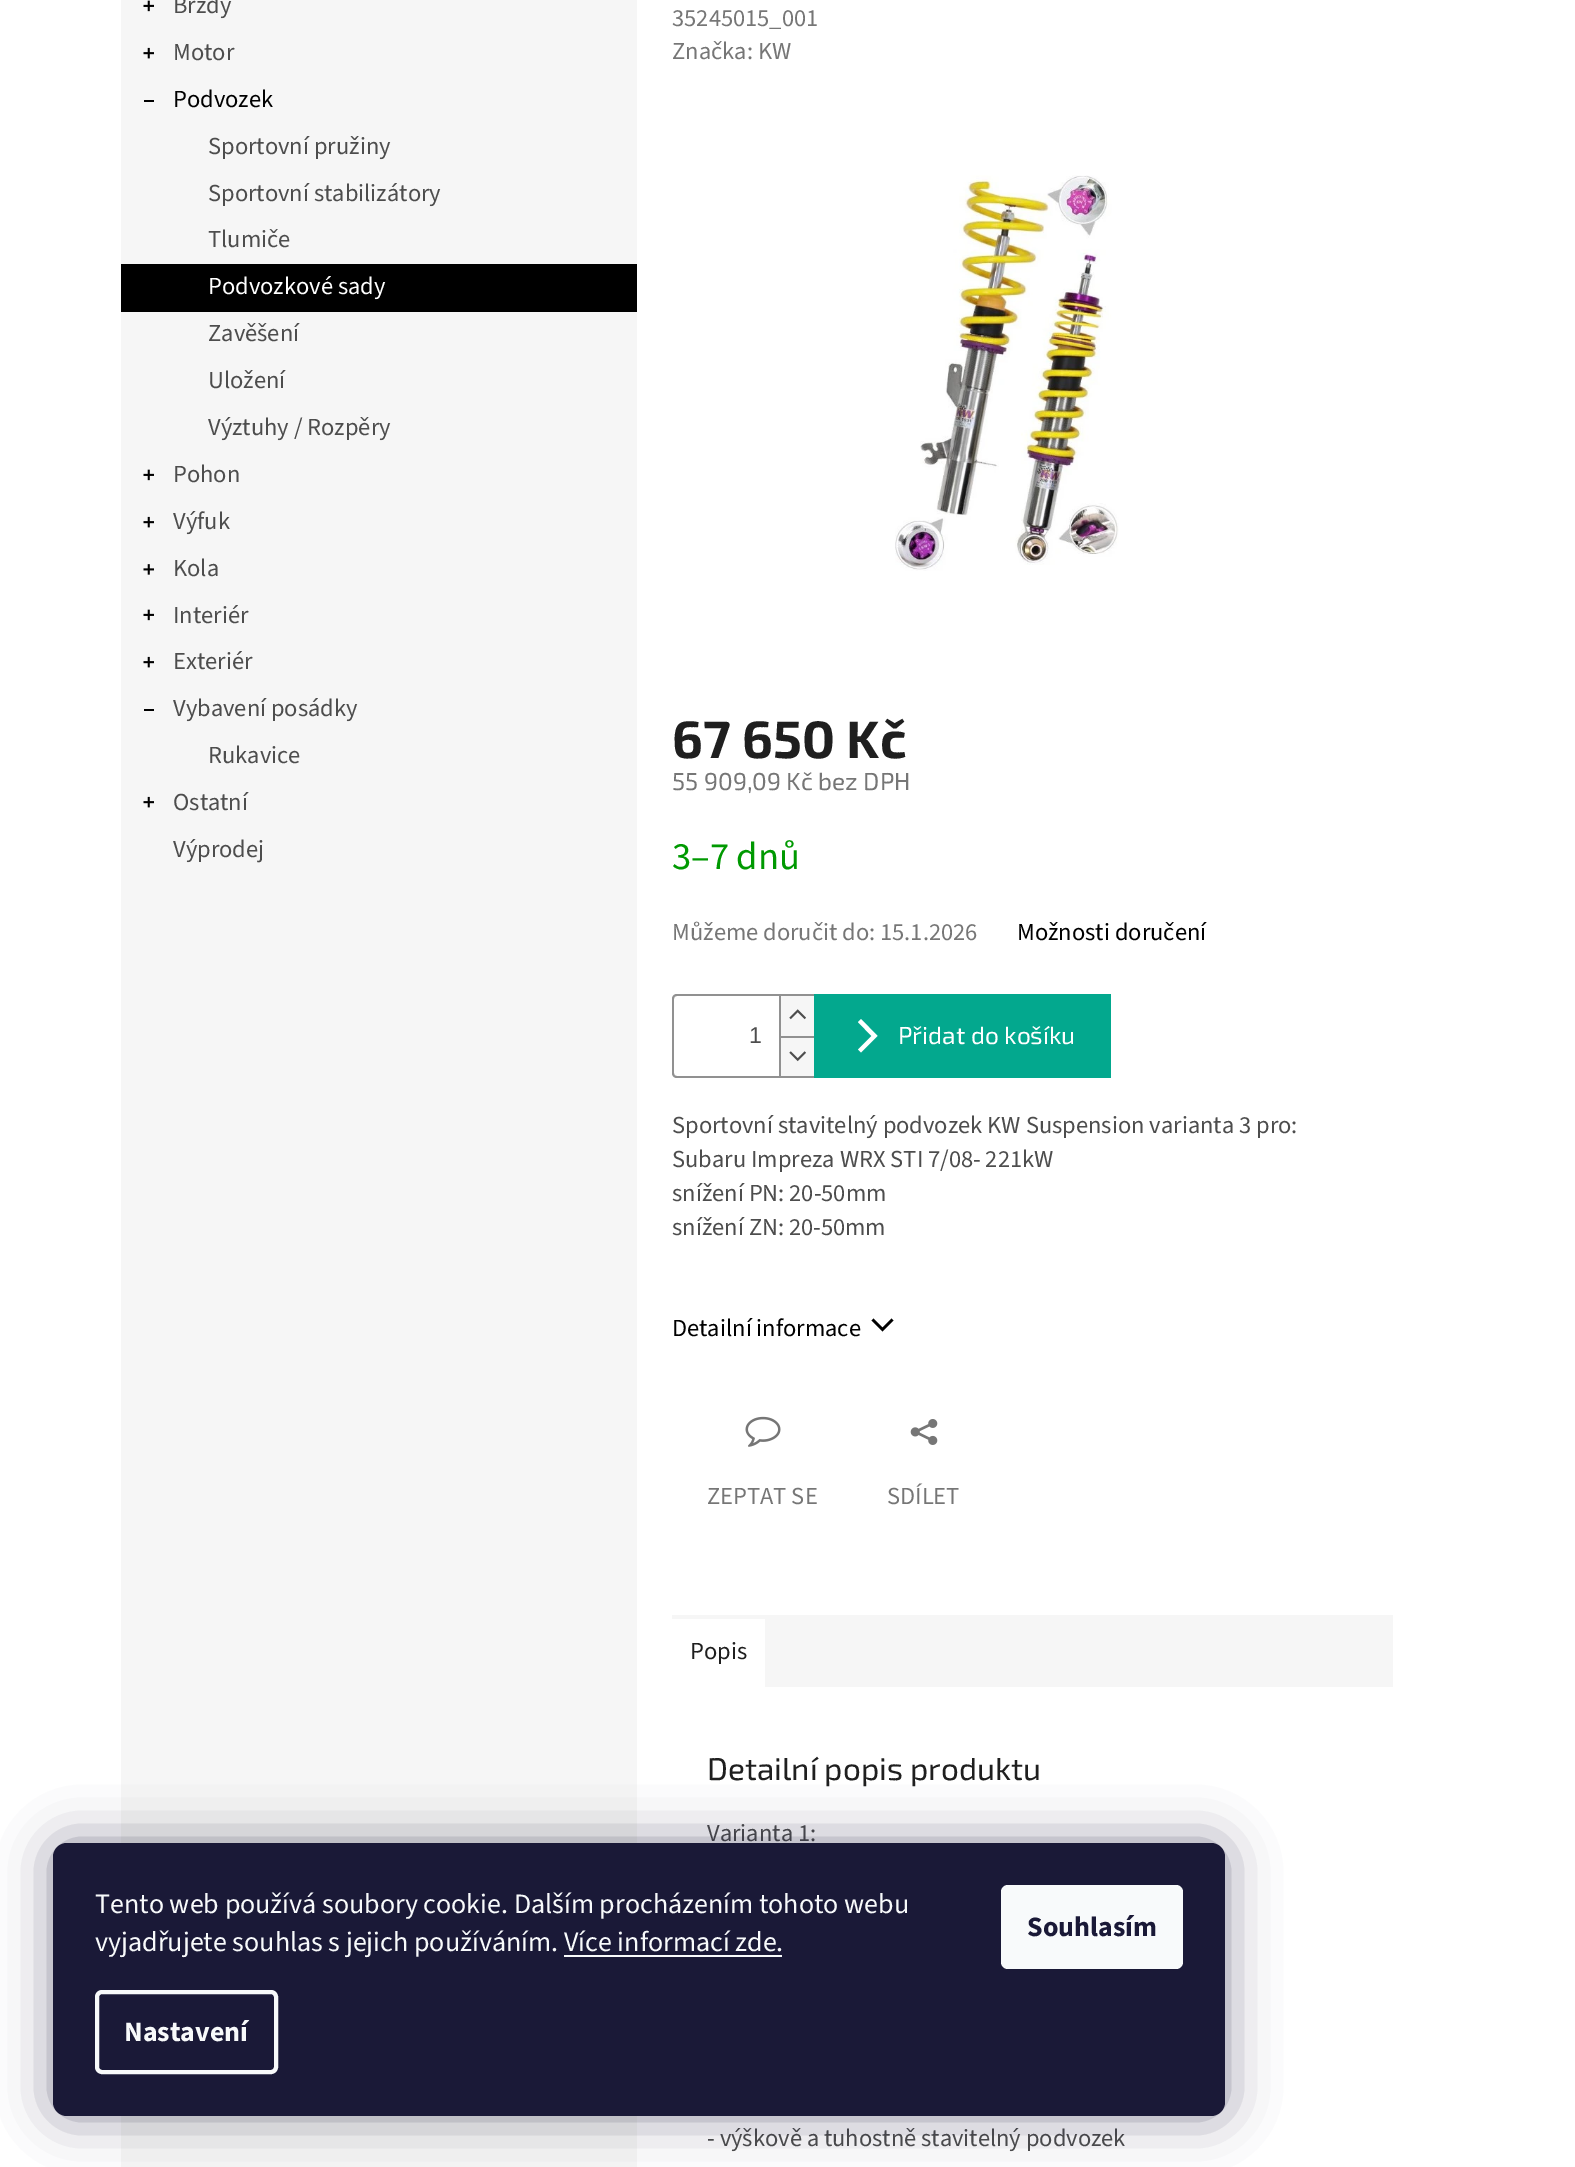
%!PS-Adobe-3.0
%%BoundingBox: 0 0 1575 2167
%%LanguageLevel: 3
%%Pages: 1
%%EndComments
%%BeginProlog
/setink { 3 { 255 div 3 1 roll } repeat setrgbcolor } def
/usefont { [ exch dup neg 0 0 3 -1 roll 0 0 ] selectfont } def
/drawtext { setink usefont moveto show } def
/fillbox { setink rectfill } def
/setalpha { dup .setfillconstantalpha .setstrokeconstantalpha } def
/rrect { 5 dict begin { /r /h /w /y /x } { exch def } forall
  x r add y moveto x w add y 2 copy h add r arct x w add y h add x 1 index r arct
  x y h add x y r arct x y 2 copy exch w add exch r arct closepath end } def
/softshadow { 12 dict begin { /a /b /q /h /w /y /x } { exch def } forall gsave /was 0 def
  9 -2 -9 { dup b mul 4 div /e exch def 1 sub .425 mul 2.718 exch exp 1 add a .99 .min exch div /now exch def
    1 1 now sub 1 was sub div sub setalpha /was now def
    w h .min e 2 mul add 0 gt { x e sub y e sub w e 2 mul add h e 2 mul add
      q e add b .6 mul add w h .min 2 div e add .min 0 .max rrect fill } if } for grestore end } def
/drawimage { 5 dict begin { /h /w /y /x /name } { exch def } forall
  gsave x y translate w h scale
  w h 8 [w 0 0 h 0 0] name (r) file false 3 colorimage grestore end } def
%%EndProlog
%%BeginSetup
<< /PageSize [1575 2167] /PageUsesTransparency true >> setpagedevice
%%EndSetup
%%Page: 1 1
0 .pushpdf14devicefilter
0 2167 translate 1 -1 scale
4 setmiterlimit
0 0 1575 2167 255 255 255 fillbox
121 0 516 2167 246 246 246 fillbox
(assets/img1.rgb) 143 0 11 12 drawimage
(Brzdy) 173 13 /SourceSans3-Regular 24.5 77 77 77 drawtext
(assets/img2.rgb) 143 47 11 12 drawimage
(Motor) 173 60 /SourceSans3-Regular 24.5 77 77 77 drawtext
144 100 10 2 0 0 0 fillbox
(Podvozek) 173 107 /SourceSans3-Regular 24.5 0 0 0 drawtext
(Sportovní pružiny) 208 154 /SourceSans3-Regular 24.5 77 77 77 drawtext
(Sportovní stabilizátory) 208 201 /SourceSans3-Regular 24.5 77 77 77 drawtext
(Tlumiče) 208 247 /SourceSans3-Regular 24.5 77 77 77 drawtext
121 264 516 48 0 0 0 fillbox
(Podvozkové sady) 208 294 /SourceSans3-Regular 24.5 255 255 255 drawtext
(Zavěšení) 208 341 /SourceSans3-Regular 24.5 77 77 77 drawtext
(Uložení) 208 388 /SourceSans3-Regular 24.5 77 77 77 drawtext
(Výztuhy / Rozpěry) 208 435 /SourceSans3-Regular 24.5 77 77 77 drawtext
(assets/img1.rgb) 143 469 11 12 drawimage
(Pohon) 173 482 /SourceSans3-Regular 24.5 77 77 77 drawtext
(assets/img2.rgb) 143 516 11 12 drawimage
(Výfuk) 173 529 /SourceSans3-Regular 24.5 77 77 77 drawtext
(assets/img3.rgb) 143 564 11 11 drawimage
(Kola) 173 576 /SourceSans3-Regular 24.5 77 77 77 drawtext
(assets/img1.rgb) 143 609 11 12 drawimage
(Interiér) 173 623 /SourceSans3-Regular 24.5 77 77 77 drawtext
(assets/img2.rgb) 143 656 11 12 drawimage
(Exteriér) 173 669 /SourceSans3-Regular 24.5 77 77 77 drawtext
144 709 10 2 0 0 0 fillbox
(Vybavení posádky) 173 716 /SourceSans3-Regular 24.5 77 77 77 drawtext
(Rukavice) 208 763 /SourceSans3-Regular 24.5 77 77 77 drawtext
(assets/img2.rgb) 143 796 11 12 drawimage
(Ostatní) 173 810 /SourceSans3-Regular 24.5 77 77 77 drawtext
(Výprodej) 173 857 /SourceSans3-Regular 24.5 77 77 77 drawtext
(35245015_001) 672 26 /SourceSans3-Regular 24.5 118 118 118 drawtext
(Značka: KW) 672 59 /SourceSans3-Regular 24.5 118 118 118 drawtext
(assets/img4.rgb) 895 175 224 396 drawimage
(67 650 Kč) 672 758 /Exo2-Bold 52.5 31 31 31 drawtext
(55 909,09 Kč bez DPH) 672 790 /Exo2-Regular 24.5 118 118 118 drawtext
(3–7 dnů) 672 869 /SourceSans3-Regular 38.5 0 153 1 drawtext
(Můžeme doručit do: 15.1.2026) 672 940 /SourceSans3-Regular 24.5 118 118 118 drawtext
(Možnosti doručení) 1017 940 /SourceSans3-Regular 24.5 0 0 0 drawtext
145 145 145 setink
677 994 moveto 814 994 lineto 814 1078 lineto 677 1078 lineto 674 1078 672 1076 672 1073 curveto 672 999 lineto 672 996 674 994 677 994 curveto closepath 677 996 moveto 814 996 lineto 814 1076 lineto 677 1076 lineto 675 1076 674 1075 674 1073 curveto 674 999 lineto 674 997 675 996 677 996 curveto closepath eofill
(1) 749 1043 /LiberationSans-Regular 23 77 77 77 drawtext
781 996 33 40 246 246 246 fillbox
779 996 2 40 145 145 145 fillbox
(assets/img5.rgb) 789 1009 17 11 drawimage
781 1038 33 38 246 246 246 fillbox
779 1036 35 2 145 145 145 fillbox
779 1036 2 40 145 145 145 fillbox
(assets/img6.rgb) 789 1051 17 11 drawimage
814 994 297 84 3 168 142 fillbox
255 255 255 setink
861 1052.5 moveto 858 1049.5 lineto 871.5 1036 lineto 858 1022 lineto 861 1019 lineto 877.5 1036 lineto closepath fill
(Přidat do košíku) 898 1044 /Exo2-Regular 24.5 255 255 255 drawtext
(Sportovní stavitelný podvozek KW Suspension varianta 3 pro:) 672 1133 /SourceSans3-Regular 24.5 77 77 77 drawtext
(Subaru Impreza WRX STI 7/08- 221kW) 672 1167 /SourceSans3-Regular 24.5 77 77 77 drawtext
(snížení PN: 20-50mm) 672 1201 /SourceSans3-Regular 24.5 77 77 77 drawtext
(snížení ZN: 20-50mm) 672 1235 /SourceSans3-Regular 24.5 77 77 77 drawtext
(Detailní informace) 672 1336 /SourceSans3-Regular 24.5 0 0 0 drawtext
871.5 1320.5 moveto 873.5 1318.5 lineto 882.5 1327.5 lineto 891.5 1318.5 lineto 893.5 1320.5 lineto 882.5 1331.5 lineto closepath fill
(assets/img7.rgb) 745 1416 36 31 drawimage
(ZEPTAT SE) 707 1504 /SourceSans3-Regular 24.5 118 118 118 drawtext
(assets/img8.rgb) 910 1419 28 26 drawimage
(SDÍLET) 887 1504 /SourceSans3-Regular 24.5 118 118 118 drawtext
765 1615 628 72 246 246 246 fillbox
672 1615 93 4 246 246 246 fillbox
(Popis) 690 1659 /SourceSans3-Regular 24.5 31 31 31 drawtext
(Detailní popis produktu) 707 1780 /Exo2-Regular 31.5 31 31 31 drawtext
(Varianta 1:) 707 1841 /SourceSans3-Regular 24.5 77 77 77 drawtext
(- výškově a tuhostně stavitelný podvozek) 707 2146 /SourceSans3-Regular 24.5 77 77 77 drawtext
27 25 57 setink
53 1843 1172 273 14 26 0.5 softshadow
26 25 55 setink
53 1843 1172 273 14 rrect fill
(Tento web používá soubory cookie. Dalším procházením tohoto webu) 95 1913 /SourceSans3-Regular 28 248 250 251 drawtext
(vyjadřujete souhlas s jejich používáním. Více informací zde.) 95 1951 /SourceSans3-Regular 28 248 250 251 drawtext
564 1955 218 2 248 250 251 fillbox
4 setlinewidth
97 1992 179 80 5 rrect stroke
(Nastavení) 124 2041 /SourceSans3-Bold 28 248 250 251 drawtext
1001 1885 182 84 7 rrect fill
(Souhlasím) 1027 1936 /SourceSans3-Bold 28 26 25 55 drawtext
.poppdf14devicefilter showpage
%%EOF
